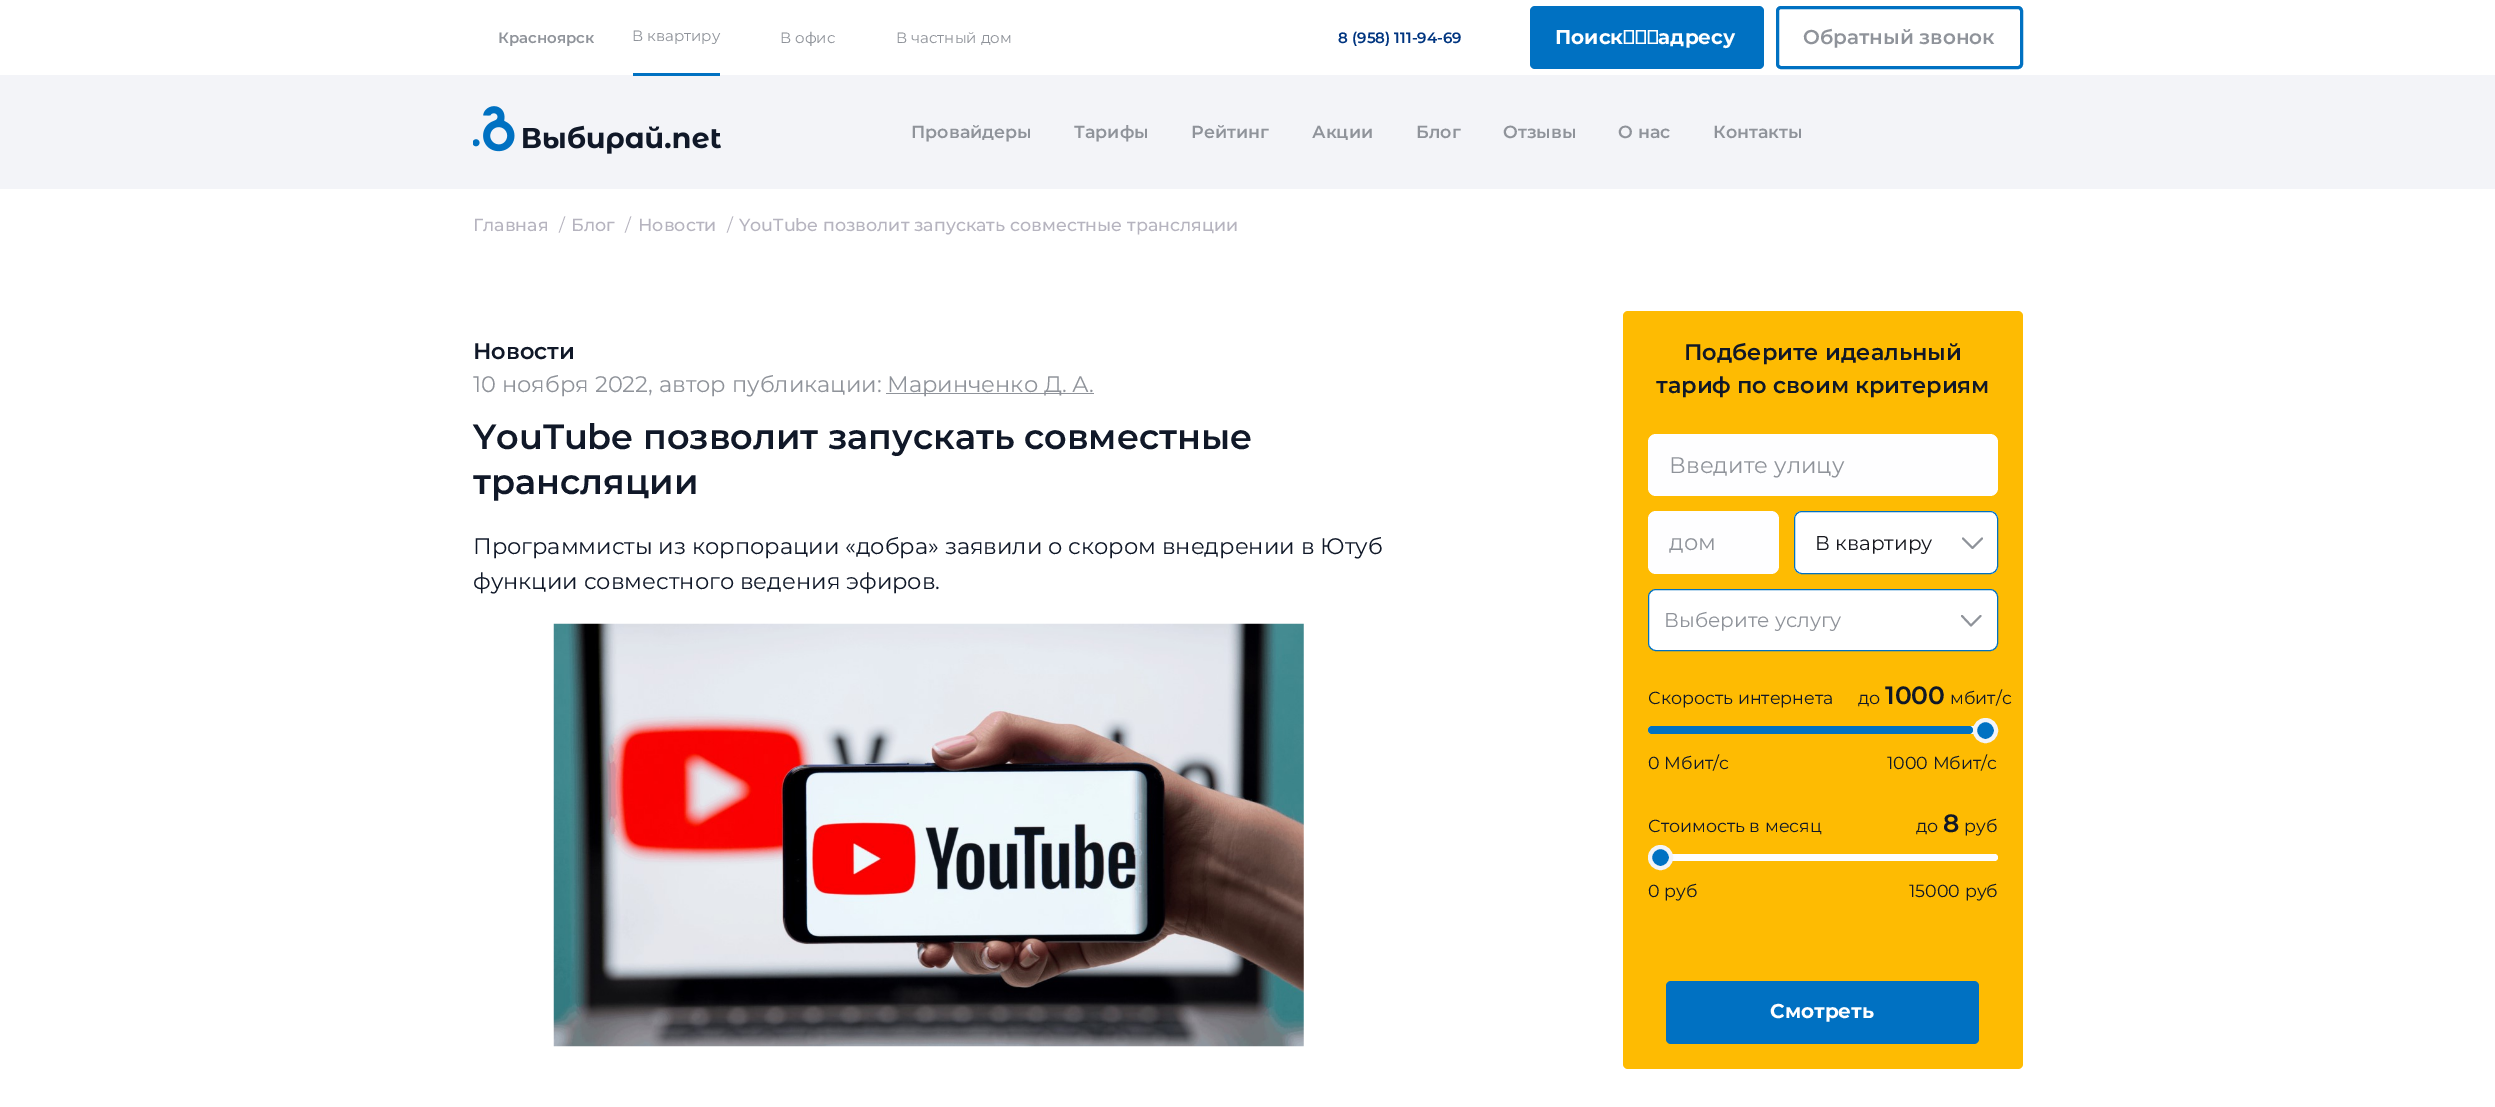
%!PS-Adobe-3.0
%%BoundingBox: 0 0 2495 1107
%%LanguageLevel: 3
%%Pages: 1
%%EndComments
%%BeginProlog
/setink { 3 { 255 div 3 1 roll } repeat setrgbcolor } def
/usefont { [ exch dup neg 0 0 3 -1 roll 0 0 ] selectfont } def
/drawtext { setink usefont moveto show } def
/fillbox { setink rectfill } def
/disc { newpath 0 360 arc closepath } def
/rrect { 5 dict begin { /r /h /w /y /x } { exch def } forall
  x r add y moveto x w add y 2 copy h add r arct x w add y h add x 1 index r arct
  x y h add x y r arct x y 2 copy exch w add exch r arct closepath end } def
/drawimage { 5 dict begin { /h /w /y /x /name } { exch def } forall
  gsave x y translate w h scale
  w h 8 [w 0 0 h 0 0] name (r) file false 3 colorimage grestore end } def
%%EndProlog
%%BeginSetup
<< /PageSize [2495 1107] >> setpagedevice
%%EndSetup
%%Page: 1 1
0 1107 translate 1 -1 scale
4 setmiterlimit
0 0 2495 1107 255 255 255 fillbox
(Красноярск) 498 43 /Montserrat-SemiBold 15 143 147 154 drawtext
0 75 2495 114 243 244 248 fillbox
633 73 87 3 0 113 194 fillbox
(В квартиру) 632 41 /Montserrat-Regular 15 143 147 154 drawtext
(В офис) 780 43 /Montserrat-Regular 15 143 147 154 drawtext
(В частный дом) 896 43 /Montserrat-Regular 15 143 147 154 drawtext
(8 \(958\) 111-94-69) 1338 43 /Montserrat-SemiBold 15 0 53 128 drawtext
0 113 194 setink
1530 6 234 63 5 rrect fill
(Поиск по адресу) 1555 44 /Montserrat-Bold 20 255 255 255 drawtext
0 113 194 setink
3 setlinewidth
1777.5 7.5 244 60 3.5 rrect stroke
(Обратный звонок) 1803 44 /Montserrat-SemiBold 20 143 147 154 drawtext
(assets/img1.rgb) 473 106 248 48 drawimage
(Провайдеры) 911 138 /Montserrat-SemiBold 17.5 143 147 154 drawtext
(Тарифы) 1074 138 /Montserrat-SemiBold 17.5 143 147 154 drawtext
(Рейтинг) 1191 138 /Montserrat-SemiBold 17.5 143 147 154 drawtext
(Акции) 1312 138 /Montserrat-SemiBold 17.5 143 147 154 drawtext
(Блог) 1416 138 /Montserrat-SemiBold 17.5 143 147 154 drawtext
(Отзывы) 1503 138 /Montserrat-SemiBold 17.5 143 147 154 drawtext
(О нас) 1618 138 /Montserrat-SemiBold 17.5 143 147 154 drawtext
(Контакты) 1713 138 /Montserrat-SemiBold 17.5 143 147 154 drawtext
(Главная) 473 231 /Montserrat-Medium 17.5 182 180 191 drawtext
(/) 559 231 /Montserrat-Regular 17.5 182 180 191 drawtext
(Блог) 571 231 /Montserrat-Medium 17.5 182 180 191 drawtext
(/) 625 231 /Montserrat-Regular 17.5 182 180 191 drawtext
(Новости) 638 231 /Montserrat-Medium 17.5 182 180 191 drawtext
(/) 727 231 /Montserrat-Regular 17.5 182 180 191 drawtext
(YouTube позволит запускать совместные трансляции) 739 231 /Montserrat-Medium 17.5 182 180 191 drawtext
(Новости) 473 359 /Montserrat-SemiBold 22.5 16 24 40 drawtext
(10 ноября 2022, автор публикации:) 473 392 /Montserrat-Regular 22.5 143 147 154 drawtext
886 393 208 1 143 147 154 fillbox
(Маринченко Д. А.) 887 392 /Montserrat-Regular 22.5 143 147 154 drawtext
(YouTube позволит запускать совместные) 473 449 /Montserrat-SemiBold 35 16 24 40 drawtext
(трансляции) 473 494 /Montserrat-SemiBold 35 16 24 40 drawtext
(Программисты из корпорации «добра» заявили о скором внедрении в Ютуб) 473 554 /Montserrat-Regular 22.5 16 24 40 drawtext
(функции совместного ведения эфиров.) 473 589 /Montserrat-Regular 22.5 16 24 40 drawtext
(assets/img2.rgb) 553 623 751 424 drawimage
254 187 2 setink
1623 311 400 758 5 rrect fill
(Подберите идеальный) 1684 360 /Montserrat-SemiBold 22.5 16 24 40 drawtext
(тариф по своим критериям) 1656 393 /Montserrat-SemiBold 22.5 16 24 40 drawtext
254 254 255 setink
1648 434 350 62 8 rrect fill
(Введите улицу) 1669 473 /Montserrat-Regular 22.5 143 147 154 drawtext
254 254 255 setink
1648 511 131 63 8 rrect fill
(дом) 1669 550 /Montserrat-Regular 22.5 143 147 154 drawtext
255 255 255 setink
1794 511 204 63 8 rrect fill
1795 513 201 60 6 rrect fill
0 113 194 setink
1 setlinewidth
1794.5 511.5 203 62 7.5 rrect stroke
(В квартиру) 1815 550 /Montserrat-Regular 20 24 25 31 drawtext
143 147 154 setink
1.9 setlinewidth
1 setlinecap
1 setlinejoin
1963 538.5 moveto 1972.5 548 lineto 1982 538.5 lineto stroke
255 255 255 setink
1648.5 589.5 349 61 7.5 rrect gsave fill grestore
0 113 194 setink
1 setlinewidth
0 setlinecap
0 setlinejoin
stroke
(Выберите услугу) 1664 627 /Montserrat-Regular 20 143 147 154 drawtext
1.9 setlinewidth
1 setlinecap
1 setlinejoin
1962 616 moveto 1971 625.5 lineto 1980.5 616 lineto stroke
(Скорость интернета) 1648 704 /Montserrat-Regular 17.5 16 24 40 drawtext
(до) 1858 704 /Montserrat-Regular 17.5 16 24 40 drawtext
(1000) 1885 704 /Montserrat-SemiBold 25 16 24 40 drawtext
(мбит/с) 1950 704 /Montserrat-Regular 17.5 16 24 40 drawtext
254 254 255 setink
1648 726 350 8 4 rrect fill
0 113 194 setink
1648 726 325 8 4 rrect fill
1985.5 730.5 10.5 disc gsave fill grestore
243 244 248 setink
4 setlinewidth
0 setlinecap
0 setlinejoin
stroke
(0 Мбит/с) 1648 769 /Montserrat-Regular 17.5 16 24 40 drawtext
(1000 Мбит/с) 1887 769 /Montserrat-Regular 17.5 16 24 40 drawtext
(Стоимость в месяц) 1648 832 /Montserrat-Regular 17.5 16 24 40 drawtext
(до) 1916 832 /Montserrat-Regular 17.5 16 24 40 drawtext
(8) 1943 832 /Montserrat-SemiBold 25 16 24 40 drawtext
(руб) 1964 832 /Montserrat-Regular 17.5 16 24 40 drawtext
254 254 255 setink
1648 854 350 7 3.5 rrect fill
0 113 194 setink
1660.5 857.5 10.5 disc gsave fill grestore
243 244 248 setink
stroke
(0 руб) 1648 897 /Montserrat-Regular 17.5 16 24 40 drawtext
(15000 руб) 1909 897 /Montserrat-Regular 17.5 16 24 40 drawtext
0 113 194 setink
1666 981 313 63 5 rrect fill
(Смотреть) 1770 1018 /Montserrat-Bold 20 255 255 255 drawtext
showpage
%%EOF
